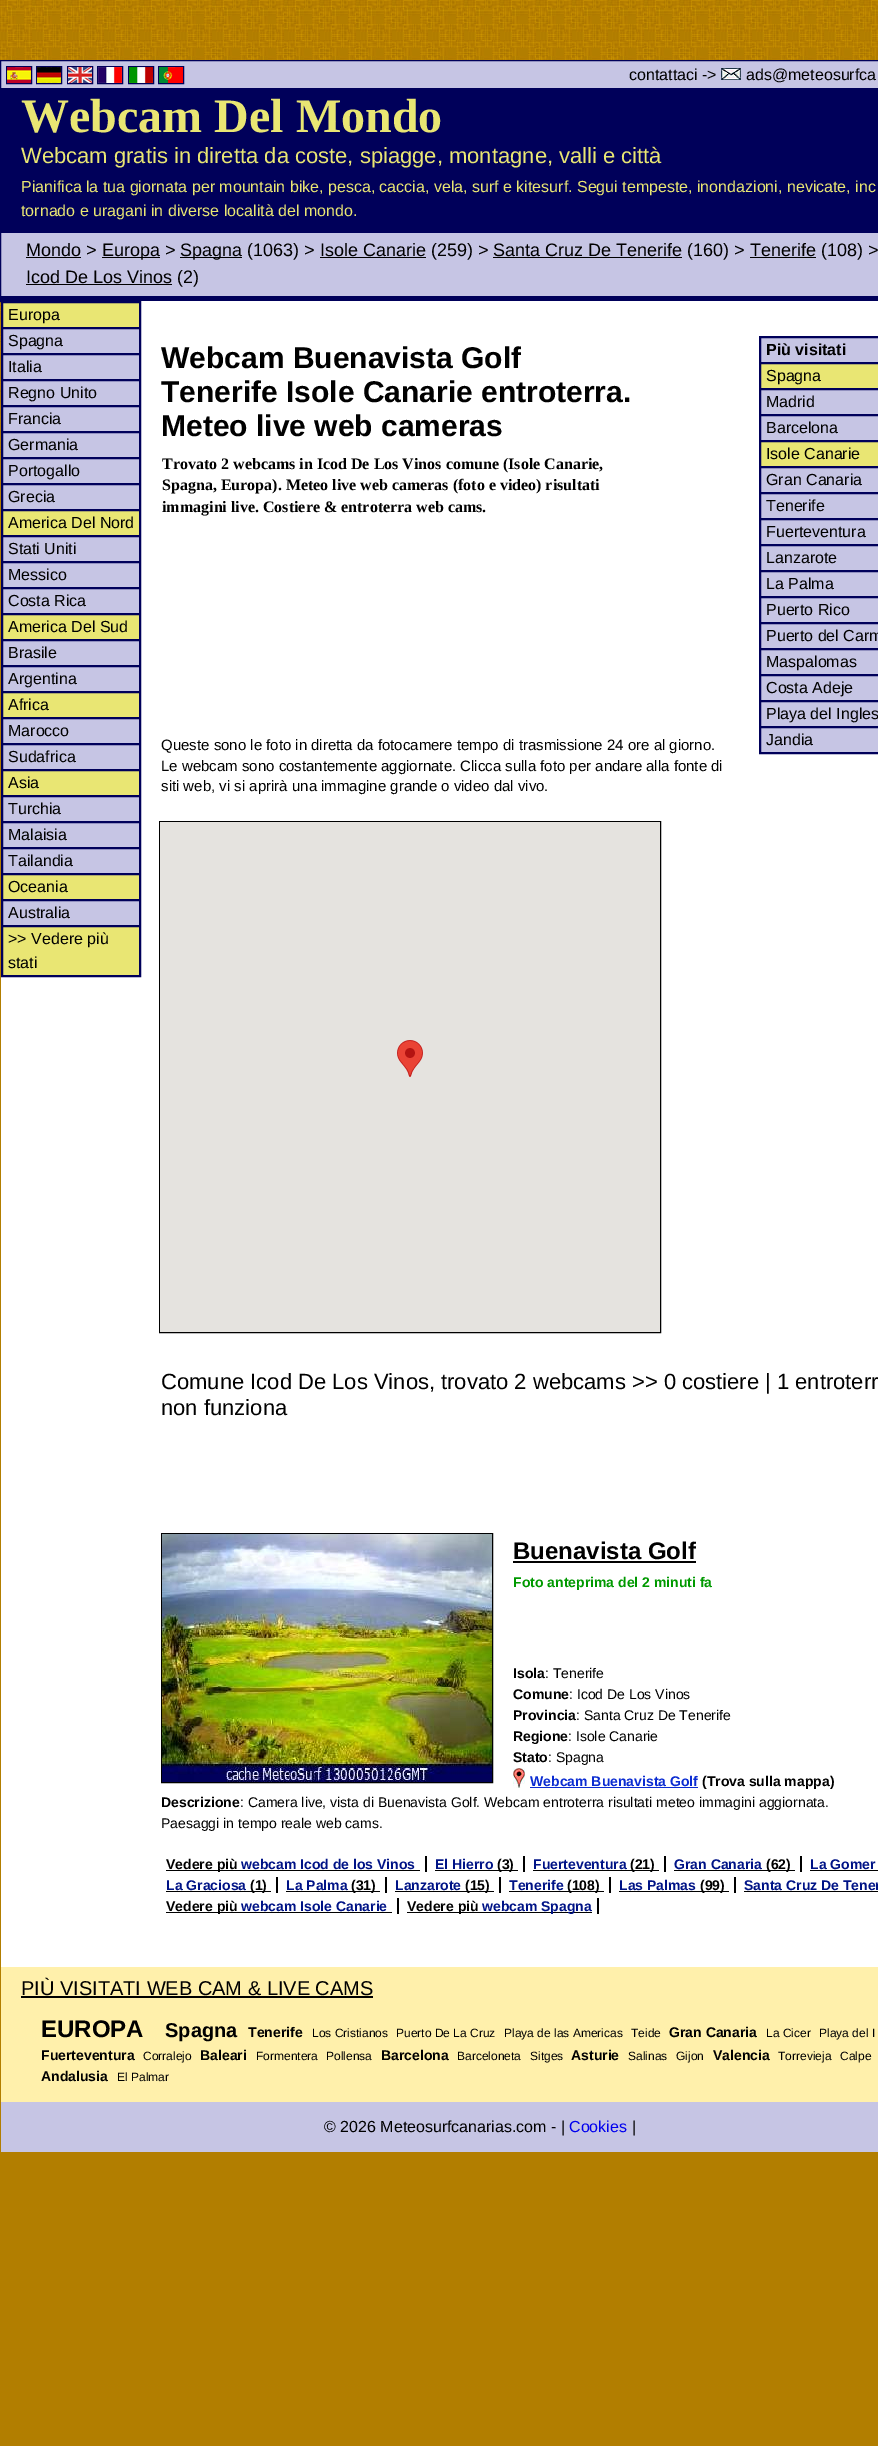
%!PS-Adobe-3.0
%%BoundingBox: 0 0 878 2446
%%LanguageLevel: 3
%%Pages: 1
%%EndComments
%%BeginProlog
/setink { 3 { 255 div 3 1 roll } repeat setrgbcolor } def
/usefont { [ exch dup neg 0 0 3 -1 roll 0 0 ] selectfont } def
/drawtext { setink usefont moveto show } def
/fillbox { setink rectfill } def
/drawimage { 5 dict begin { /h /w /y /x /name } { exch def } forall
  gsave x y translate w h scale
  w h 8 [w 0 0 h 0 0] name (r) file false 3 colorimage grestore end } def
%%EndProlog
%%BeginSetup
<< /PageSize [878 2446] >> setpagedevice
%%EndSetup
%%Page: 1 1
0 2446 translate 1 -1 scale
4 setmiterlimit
0 0 878 2446 255 255 255 fillbox
(assets/img1.rgb) 0 0 878 60 drawimage
0 536 878 1910 178 126 0 fillbox
(assets/img2.rgb) 0 302 1 234 drawimage
1 61 877 235 198 197 228 fillbox
0 0 90 setink
0.5 60.5 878 241 rectstroke
1 88 877 145 0 0 90 fillbox
6.5 66.5 25 17 rectstroke
36.5 66.5 25 17 rectstroke
67.5 66.5 25 17 rectstroke
97.5 66.5 25 17 rectstroke
128.5 66.5 25 17 rectstroke
158.5 66.5 25 17 rectstroke
(assets/img3.rgb) 7 67 24 16 drawimage
(assets/img4.rgb) 37 67 24 16 drawimage
(assets/img5.rgb) 68 67 24 16 drawimage
(assets/img6.rgb) 98 67 24 16 drawimage
(assets/img7.rgb) 129 67 24 16 drawimage
(assets/img8.rgb) 159 67 24 16 drawimage
(contattaci ->) 629 80 /LiberationSans-Regular 16 0 0 0 drawtext
(assets/img9.rgb) 721 68 20 12 drawimage
(ads@meteosurfca) 746 80 /LiberationSans-Regular 16 0 0 0 drawtext
(Webcam Del Mondo) 21 132 /LiberationSerif-Bold 48 233 230 115 drawtext
(Webcam gratis in diretta da coste, spiagge, montagne, valli e città) 21 163 /LiberationSans-Regular 22 233 230 115 drawtext
(Pianifica la tua giornata per mountain bike, pesca, caccia, vela, surf e kitesurf. Segui tempeste, inondazioni, nevicate, inc) 21 192 /LiberationSans-Regular 16 233 230 115 drawtext
(tornado e uragani in diverse località del mondo.) 21 216 /LiberationSans-Regular 16 233 230 115 drawtext
1 296 877 5 0 0 90 fillbox
(Mondo >) 26 256 /LiberationSans-Regular 18 0 0 0 drawtext
26 257 55 1 0 0 0 fillbox
102 257 58 1 0 0 0 fillbox
(Europa >) 102 256 /LiberationSans-Regular 18 0 0 0 drawtext
180 257 62 1 0 0 0 fillbox
(Spagna \(1063\) > Isole Canarie \(259\) > Santa Cruz De Tenerife \(160\) > Tenerife \(108\) >) 180 256 /LiberationSans-Regular 18 0 0 0 drawtext
320 257 106 1 0 0 0 fillbox
493 257 189 1 0 0 0 fillbox
750 257 66 1 0 0 0 fillbox
26 284 146 1 0 0 0 fillbox
(Icod De Los Vinos \(2\)) 26 283 /LiberationSans-Regular 18 0 0 0 drawtext
1 301 877 1666 255 255 255 fillbox
0 0 90 setink
1.5 301.5 139 675 rectstroke
233 230 115 setink
2.5 302.5 moveto 139.5 302.5 lineto 139.5 327.5 lineto 2.5 327.5 lineto closepath gsave fill grestore
0 0 90 setink
stroke
(Europa) 8 320 /LiberationSans-Regular 16 0 0 0 drawtext
198 197 228 setink
2.5 328.5 moveto 139.5 328.5 lineto 139.5 353.5 lineto 2.5 353.5 lineto closepath gsave fill grestore
0 0 90 setink
stroke
(Spagna) 8 346 /LiberationSans-Regular 16 0 0 0 drawtext
198 197 228 setink
2.5 354.5 moveto 139.5 354.5 lineto 139.5 379.5 lineto 2.5 379.5 lineto closepath gsave fill grestore
0 0 90 setink
stroke
(Italia) 8 372 /LiberationSans-Regular 16 0 0 0 drawtext
198 197 228 setink
2.5 380.5 moveto 139.5 380.5 lineto 139.5 405.5 lineto 2.5 405.5 lineto closepath gsave fill grestore
0 0 90 setink
stroke
(Regno Unito) 8 398 /LiberationSans-Regular 16 0 0 0 drawtext
198 197 228 setink
2.5 406.5 moveto 139.5 406.5 lineto 139.5 431.5 lineto 2.5 431.5 lineto closepath gsave fill grestore
0 0 90 setink
stroke
(Francia) 8 424 /LiberationSans-Regular 16 0 0 0 drawtext
198 197 228 setink
2.5 432.5 moveto 139.5 432.5 lineto 139.5 457.5 lineto 2.5 457.5 lineto closepath gsave fill grestore
0 0 90 setink
stroke
(Germania) 8 450 /LiberationSans-Regular 16 0 0 0 drawtext
198 197 228 setink
2.5 458.5 moveto 139.5 458.5 lineto 139.5 483.5 lineto 2.5 483.5 lineto closepath gsave fill grestore
0 0 90 setink
stroke
(Portogallo) 8 476 /LiberationSans-Regular 16 0 0 0 drawtext
198 197 228 setink
2.5 484.5 moveto 139.5 484.5 lineto 139.5 509.5 lineto 2.5 509.5 lineto closepath gsave fill grestore
0 0 90 setink
stroke
(Grecia) 8 502 /LiberationSans-Regular 16 0 0 0 drawtext
233 230 115 setink
2.5 510.5 moveto 139.5 510.5 lineto 139.5 535.5 lineto 2.5 535.5 lineto closepath gsave fill grestore
0 0 90 setink
stroke
(America Del Nord) 8 528 /LiberationSans-Regular 16 0 0 0 drawtext
198 197 228 setink
2.5 536.5 moveto 139.5 536.5 lineto 139.5 561.5 lineto 2.5 561.5 lineto closepath gsave fill grestore
0 0 90 setink
stroke
(Stati Uniti) 8 554 /LiberationSans-Regular 16 0 0 0 drawtext
198 197 228 setink
2.5 562.5 moveto 139.5 562.5 lineto 139.5 587.5 lineto 2.5 587.5 lineto closepath gsave fill grestore
0 0 90 setink
stroke
(Messico) 8 580 /LiberationSans-Regular 16 0 0 0 drawtext
198 197 228 setink
2.5 588.5 moveto 139.5 588.5 lineto 139.5 613.5 lineto 2.5 613.5 lineto closepath gsave fill grestore
0 0 90 setink
stroke
(Costa Rica) 8 606 /LiberationSans-Regular 16 0 0 0 drawtext
233 230 115 setink
2.5 614.5 moveto 139.5 614.5 lineto 139.5 639.5 lineto 2.5 639.5 lineto closepath gsave fill grestore
0 0 90 setink
stroke
(America Del Sud) 8 632 /LiberationSans-Regular 16 0 0 0 drawtext
198 197 228 setink
2.5 640.5 moveto 139.5 640.5 lineto 139.5 665.5 lineto 2.5 665.5 lineto closepath gsave fill grestore
0 0 90 setink
stroke
(Brasile) 8 658 /LiberationSans-Regular 16 0 0 0 drawtext
198 197 228 setink
2.5 666.5 moveto 139.5 666.5 lineto 139.5 691.5 lineto 2.5 691.5 lineto closepath gsave fill grestore
0 0 90 setink
stroke
(Argentina) 8 684 /LiberationSans-Regular 16 0 0 0 drawtext
233 230 115 setink
2.5 692.5 moveto 139.5 692.5 lineto 139.5 717.5 lineto 2.5 717.5 lineto closepath gsave fill grestore
0 0 90 setink
stroke
(Africa) 8 710 /LiberationSans-Regular 16 0 0 0 drawtext
198 197 228 setink
2.5 718.5 moveto 139.5 718.5 lineto 139.5 743.5 lineto 2.5 743.5 lineto closepath gsave fill grestore
0 0 90 setink
stroke
(Marocco) 8 736 /LiberationSans-Regular 16 0 0 0 drawtext
198 197 228 setink
2.5 744.5 moveto 139.5 744.5 lineto 139.5 769.5 lineto 2.5 769.5 lineto closepath gsave fill grestore
0 0 90 setink
stroke
(Sudafrica) 8 762 /LiberationSans-Regular 16 0 0 0 drawtext
233 230 115 setink
2.5 770.5 moveto 139.5 770.5 lineto 139.5 795.5 lineto 2.5 795.5 lineto closepath gsave fill grestore
0 0 90 setink
stroke
(Asia) 8 788 /LiberationSans-Regular 16 0 0 0 drawtext
198 197 228 setink
2.5 796.5 moveto 139.5 796.5 lineto 139.5 821.5 lineto 2.5 821.5 lineto closepath gsave fill grestore
0 0 90 setink
stroke
(Turchia) 8 814 /LiberationSans-Regular 16 0 0 0 drawtext
198 197 228 setink
2.5 822.5 moveto 139.5 822.5 lineto 139.5 847.5 lineto 2.5 847.5 lineto closepath gsave fill grestore
0 0 90 setink
stroke
(Malaisia) 8 840 /LiberationSans-Regular 16 0 0 0 drawtext
198 197 228 setink
2.5 848.5 moveto 139.5 848.5 lineto 139.5 873.5 lineto 2.5 873.5 lineto closepath gsave fill grestore
0 0 90 setink
stroke
(Tailandia) 8 866 /LiberationSans-Regular 16 0 0 0 drawtext
233 230 115 setink
2.5 874.5 moveto 139.5 874.5 lineto 139.5 899.5 lineto 2.5 899.5 lineto closepath gsave fill grestore
0 0 90 setink
stroke
(Oceania) 8 892 /LiberationSans-Regular 16 0 0 0 drawtext
198 197 228 setink
2.5 900.5 moveto 139.5 900.5 lineto 139.5 925.5 lineto 2.5 925.5 lineto closepath gsave fill grestore
0 0 90 setink
stroke
(Australia) 8 918 /LiberationSans-Regular 16 0 0 0 drawtext
233 230 115 setink
2.5 926.5 moveto 139.5 926.5 lineto 139.5 975.5 lineto 2.5 975.5 lineto closepath gsave fill grestore
0 0 90 setink
stroke
(>> Vedere più) 8 944 /LiberationSans-Regular 16 0 0 0 drawtext
(stati) 8 968 /LiberationSans-Regular 16 0 0 0 drawtext
(Webcam Buenavista Golf) 161 368 /LiberationSans-Bold 30 0 0 0 drawtext
(Tenerife Isole Canarie entroterra.) 161 402 /LiberationSans-Bold 30 0 0 0 drawtext
(Meteo live web cameras) 161 436 /LiberationSans-Bold 30 0 0 0 drawtext
(Trovato 2 webcams in Icod De Los Vinos comune \(Isole Canarie,) 162 469 /LiberationSerif-Bold 16 0 0 0 drawtext
(Spagna, Europa\). Meteo live web cameras \(foto e video\) risultati) 162 490 /LiberationSerif-Bold 16 0 0 0 drawtext
(immagini live. Costiere & entroterra web cams.) 162 512 /LiberationSerif-Bold 16 0 0 0 drawtext
(Queste sono le foto in diretta da fotocamere tempo di trasmissione 24 ore al giorno.) 161 750 /LiberationSans-Regular 15 0 0 0 drawtext
(Le webcam sono costantemente aggiornate. Clicca sulla foto per andare alla fonte di) 161 771 /LiberationSans-Regular 15 0 0 0 drawtext
(siti web, vi si aprirà una immagine grande o video dal vivo.) 161 791 /LiberationSans-Regular 15 0 0 0 drawtext
159.5 821.5 501 511 rectstroke
160 822 500 510 229 227 223 fillbox
(assets/img10.rgb) 397 1040 26 37 drawimage
0 0 90 setink
759.5 336.5 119 417 rectstroke
198 197 228 setink
760.5 337.5 moveto 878.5 337.5 lineto 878.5 362.5 lineto 760.5 362.5 lineto closepath gsave fill grestore
0 0 90 setink
stroke
(Più visitati) 766 355 /LiberationSans-Bold 16 0 0 0 drawtext
233 230 115 setink
760.5 363.5 moveto 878.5 363.5 lineto 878.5 388.5 lineto 760.5 388.5 lineto closepath gsave fill grestore
0 0 90 setink
stroke
(Spagna) 766 381 /LiberationSans-Regular 16 0 0 0 drawtext
198 197 228 setink
760.5 389.5 moveto 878.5 389.5 lineto 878.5 414.5 lineto 760.5 414.5 lineto closepath gsave fill grestore
0 0 90 setink
stroke
(Madrid) 766 407 /LiberationSans-Regular 16 0 0 0 drawtext
198 197 228 setink
760.5 415.5 moveto 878.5 415.5 lineto 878.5 440.5 lineto 760.5 440.5 lineto closepath gsave fill grestore
0 0 90 setink
stroke
(Barcelona) 766 433 /LiberationSans-Regular 16 0 0 0 drawtext
233 230 115 setink
760.5 441.5 moveto 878.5 441.5 lineto 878.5 466.5 lineto 760.5 466.5 lineto closepath gsave fill grestore
0 0 90 setink
stroke
(Isole Canarie) 766 459 /LiberationSans-Regular 16 0 0 0 drawtext
198 197 228 setink
760.5 467.5 moveto 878.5 467.5 lineto 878.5 492.5 lineto 760.5 492.5 lineto closepath gsave fill grestore
0 0 90 setink
stroke
(Gran Canaria) 766 485 /LiberationSans-Regular 16 0 0 0 drawtext
198 197 228 setink
760.5 493.5 moveto 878.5 493.5 lineto 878.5 518.5 lineto 760.5 518.5 lineto closepath gsave fill grestore
0 0 90 setink
stroke
(Tenerife) 766 511 /LiberationSans-Regular 16 0 0 0 drawtext
198 197 228 setink
760.5 519.5 moveto 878.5 519.5 lineto 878.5 544.5 lineto 760.5 544.5 lineto closepath gsave fill grestore
0 0 90 setink
stroke
(Fuerteventura) 766 537 /LiberationSans-Regular 16 0 0 0 drawtext
198 197 228 setink
760.5 545.5 moveto 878.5 545.5 lineto 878.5 570.5 lineto 760.5 570.5 lineto closepath gsave fill grestore
0 0 90 setink
stroke
(Lanzarote) 766 563 /LiberationSans-Regular 16 0 0 0 drawtext
198 197 228 setink
760.5 571.5 moveto 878.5 571.5 lineto 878.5 596.5 lineto 760.5 596.5 lineto closepath gsave fill grestore
0 0 90 setink
stroke
(La Palma) 766 589 /LiberationSans-Regular 16 0 0 0 drawtext
198 197 228 setink
760.5 597.5 moveto 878.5 597.5 lineto 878.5 622.5 lineto 760.5 622.5 lineto closepath gsave fill grestore
0 0 90 setink
stroke
(Puerto Rico) 766 615 /LiberationSans-Regular 16 0 0 0 drawtext
198 197 228 setink
760.5 623.5 moveto 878.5 623.5 lineto 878.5 648.5 lineto 760.5 648.5 lineto closepath gsave fill grestore
0 0 90 setink
stroke
(Puerto del Carm) 766 641 /LiberationSans-Regular 16 0 0 0 drawtext
198 197 228 setink
760.5 649.5 moveto 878.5 649.5 lineto 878.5 674.5 lineto 760.5 674.5 lineto closepath gsave fill grestore
0 0 90 setink
stroke
(Maspalomas) 766 667 /LiberationSans-Regular 16 0 0 0 drawtext
198 197 228 setink
760.5 675.5 moveto 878.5 675.5 lineto 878.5 700.5 lineto 760.5 700.5 lineto closepath gsave fill grestore
0 0 90 setink
stroke
(Costa Adeje) 766 693 /LiberationSans-Regular 16 0 0 0 drawtext
198 197 228 setink
760.5 701.5 moveto 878.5 701.5 lineto 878.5 726.5 lineto 760.5 726.5 lineto closepath gsave fill grestore
0 0 90 setink
stroke
(Playa del Ingles) 766 719 /LiberationSans-Regular 16 0 0 0 drawtext
198 197 228 setink
760.5 727.5 moveto 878.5 727.5 lineto 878.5 752.5 lineto 760.5 752.5 lineto closepath gsave fill grestore
0 0 90 setink
stroke
(Jandia) 766 745 /LiberationSans-Regular 16 0 0 0 drawtext
(Comune Icod De Los Vinos, trovato 2 webcams >> 0 costiere | 1 entroterr) 161 1389 /LiberationSans-Regular 22 0 0 0 drawtext
(non funziona) 161 1415 /LiberationSans-Regular 22 0 0 0 drawtext
161.5 1533.5 331 249 rectstroke
(assets/img11.rgb) 162 1534 330 248 drawimage
(Buenavista Golf) 513 1559 /LiberationSans-Bold 24 0 0 0 drawtext
513 1561 183 2 0 0 0 fillbox
(Foto anteprima del 2 minuti fa) 513 1587 /LiberationSans-Bold 14 0 153 0 drawtext
(Isola) 513 1678 /LiberationSans-Bold 14 0 0 0 drawtext
(: Tenerife) 545 1678 /LiberationSans-Regular 14 0 0 0 drawtext
(Comune) 513 1699 /LiberationSans-Bold 14 0 0 0 drawtext
(: Icod De Los Vinos) 569 1699 /LiberationSans-Regular 14 0 0 0 drawtext
(Provincia) 513 1720 /LiberationSans-Bold 14 0 0 0 drawtext
(: Santa Cruz De Tenerife) 576 1720 /LiberationSans-Regular 14 0 0 0 drawtext
(Regione) 513 1741 /LiberationSans-Bold 14 0 0 0 drawtext
(: Isole Canarie) 568 1741 /LiberationSans-Regular 14 0 0 0 drawtext
(Stato) 513 1762 /LiberationSans-Bold 14 0 0 0 drawtext
(: Spagna) 548 1762 /LiberationSans-Regular 14 0 0 0 drawtext
(assets/img12.rgb) 513 1768 12 20 drawimage
(Webcam Buenavista Golf) 530 1786 /LiberationSans-Bold 14 11 44 210 drawtext
530 1787 168 1 11 44 210 fillbox
(\(Trova sulla mappa\)) 702 1786 /LiberationSans-Bold 14 0 0 0 drawtext
(Descrizione) 161 1807 /LiberationSans-Bold 14 0 0 0 drawtext
(: Camera live, vista di Buenavista Golf. Webcam entroterra risultati meteo immagini aggiornata.) 240 1807 /LiberationSans-Regular 14 0 0 0 drawtext
(Paesaggi in tempo reale web cams.) 161 1828 /LiberationSans-Regular 14 0 0 0 drawtext
166 1870 254 1 0 0 0 fillbox
(Vedere più) 166 1869 /LiberationSans-Bold 14 0 0 0 drawtext
(webcam Icod de los Vinos) 241 1869 /LiberationSans-Bold 14 0 19 134 drawtext
425 1856 2 16 0 0 0 fillbox
(El Hierro) 435 1869 /LiberationSans-Bold 14 0 19 134 drawtext
435 1870 83 1 0 0 0 fillbox
(\(3\)) 497 1869 /LiberationSans-Bold 14 0 0 0 drawtext
523 1856 2 16 0 0 0 fillbox
(Fuerteventura) 533 1869 /LiberationSans-Bold 14 0 19 134 drawtext
533 1870 126 1 0 0 0 fillbox
(\(21\)) 630 1869 /LiberationSans-Bold 14 0 0 0 drawtext
664 1856 2 16 0 0 0 fillbox
(Gran Canaria) 674 1869 /LiberationSans-Bold 14 0 19 134 drawtext
674 1870 121 1 0 0 0 fillbox
(\(62\)) 766 1869 /LiberationSans-Bold 14 0 0 0 drawtext
800 1856 2 16 0 0 0 fillbox
(La Gomer) 810 1869 /LiberationSans-Bold 14 0 19 134 drawtext
810 1870 68 1 0 0 0 fillbox
(La Graciosa) 166 1890 /LiberationSans-Bold 14 0 19 134 drawtext
166 1891 105 1 0 0 0 fillbox
(\(1\)) 250 1890 /LiberationSans-Bold 14 0 0 0 drawtext
276 1877 2 16 0 0 0 fillbox
(La Palma) 286 1890 /LiberationSans-Bold 14 0 19 134 drawtext
286 1891 94 1 0 0 0 fillbox
(\(31\)) 351 1890 /LiberationSans-Bold 14 0 0 0 drawtext
385 1877 2 16 0 0 0 fillbox
(Lanzarote) 395 1890 /LiberationSans-Bold 14 0 19 134 drawtext
395 1891 99 1 0 0 0 fillbox
(\(15\)) 465 1890 /LiberationSans-Bold 14 0 0 0 drawtext
499 1877 2 16 0 0 0 fillbox
(Tenerife) 509 1890 /LiberationSans-Bold 14 0 19 134 drawtext
509 1891 95 1 0 0 0 fillbox
(\(108\)) 567 1890 /LiberationSans-Bold 14 0 0 0 drawtext
609 1877 2 16 0 0 0 fillbox
(Las Palmas) 619 1890 /LiberationSans-Bold 14 0 19 134 drawtext
619 1891 110 1 0 0 0 fillbox
(\(99\)) 700 1890 /LiberationSans-Bold 14 0 0 0 drawtext
734 1877 2 16 0 0 0 fillbox
(Santa Cruz De Tener) 744 1890 /LiberationSans-Bold 14 0 19 134 drawtext
744 1891 134 1 0 0 0 fillbox
166 1912 226 1 0 0 0 fillbox
(Vedere più) 166 1911 /LiberationSans-Bold 14 0 0 0 drawtext
(webcam Isole Canarie) 241 1911 /LiberationSans-Bold 14 0 19 134 drawtext
397 1898 2 16 0 0 0 fillbox
407 1912 185 1 0 0 0 fillbox
(Vedere più) 407 1911 /LiberationSans-Bold 14 0 0 0 drawtext
(webcam Spagna) 482 1911 /LiberationSans-Bold 14 0 19 134 drawtext
597 1898 2 16 0 0 0 fillbox
1 1967 877 135 255 240 171 fillbox
(PIÙ VISITATI WEB CAM & LIVE CAMS) 21 1995 /LiberationSans-Regular 20 0 0 0 drawtext
21 1996 352 2 0 0 0 fillbox
(EUROPA) 41 2037 /LiberationSans-Bold 24 0 0 0 drawtext
(Spagna) 165 2037 /LiberationSans-Bold 20 0 0 0 drawtext
(Tenerife) 248 2037 /LiberationSans-Bold 14 0 0 0 drawtext
(Los Cristianos) 312 2037 /LiberationSans-Regular 12 0 0 0 drawtext
(Puerto De La Cruz) 396 2037 /LiberationSans-Regular 12 0 0 0 drawtext
(Playa de las Americas) 504 2037 /LiberationSans-Regular 12 0 0 0 drawtext
(Teide) 631 2037 /LiberationSans-Regular 12 0 0 0 drawtext
(Gran Canaria) 669 2037 /LiberationSans-Bold 14 0 0 0 drawtext
(La Cicer) 766 2037 /LiberationSans-Regular 12 0 0 0 drawtext
(Playa del I) 819 2037 /LiberationSans-Regular 12 0 0 0 drawtext
(Fuerteventura) 41 2060 /LiberationSans-Bold 14 0 0 0 drawtext
(Corralejo) 143 2060 /LiberationSans-Regular 12 0 0 0 drawtext
(Baleari) 200 2060 /LiberationSans-Bold 14 0 0 0 drawtext
(Formentera) 256 2060 /LiberationSans-Regular 12 0 0 0 drawtext
(Pollensa) 326 2060 /LiberationSans-Regular 12 0 0 0 drawtext
(Barcelona) 381 2060 /LiberationSans-Bold 14 0 0 0 drawtext
(Barceloneta) 457 2060 /LiberationSans-Regular 12 0 0 0 drawtext
(Sitges) 530 2060 /LiberationSans-Regular 12 0 0 0 drawtext
(Asturie) 571 2060 /LiberationSans-Bold 14 0 0 0 drawtext
(Salinas) 628 2060 /LiberationSans-Regular 12 0 0 0 drawtext
(Gijon) 676 2060 /LiberationSans-Regular 12 0 0 0 drawtext
(Valencia) 713 2060 /LiberationSans-Bold 14 0 0 0 drawtext
(Torrevieja) 778 2060 /LiberationSans-Regular 12 0 0 0 drawtext
(Calpe) 840 2060 /LiberationSans-Regular 12 0 0 0 drawtext
(Andalusia) 41 2081 /LiberationSans-Bold 14 0 0 0 drawtext
(El Palmar) 117 2081 /LiberationSans-Regular 12 0 0 0 drawtext
1 2102 877 50 198 197 228 fillbox
(© 2026 Meteosurfcanarias.com - |) 324 2132 /LiberationSans-Regular 16 0 0 0 drawtext
(Cookies) 569 2132 /LiberationSans-Regular 16 0 0 238 drawtext
(|) 632 2132 /LiberationSans-Regular 16 0 0 0 drawtext
showpage
%%EOF
